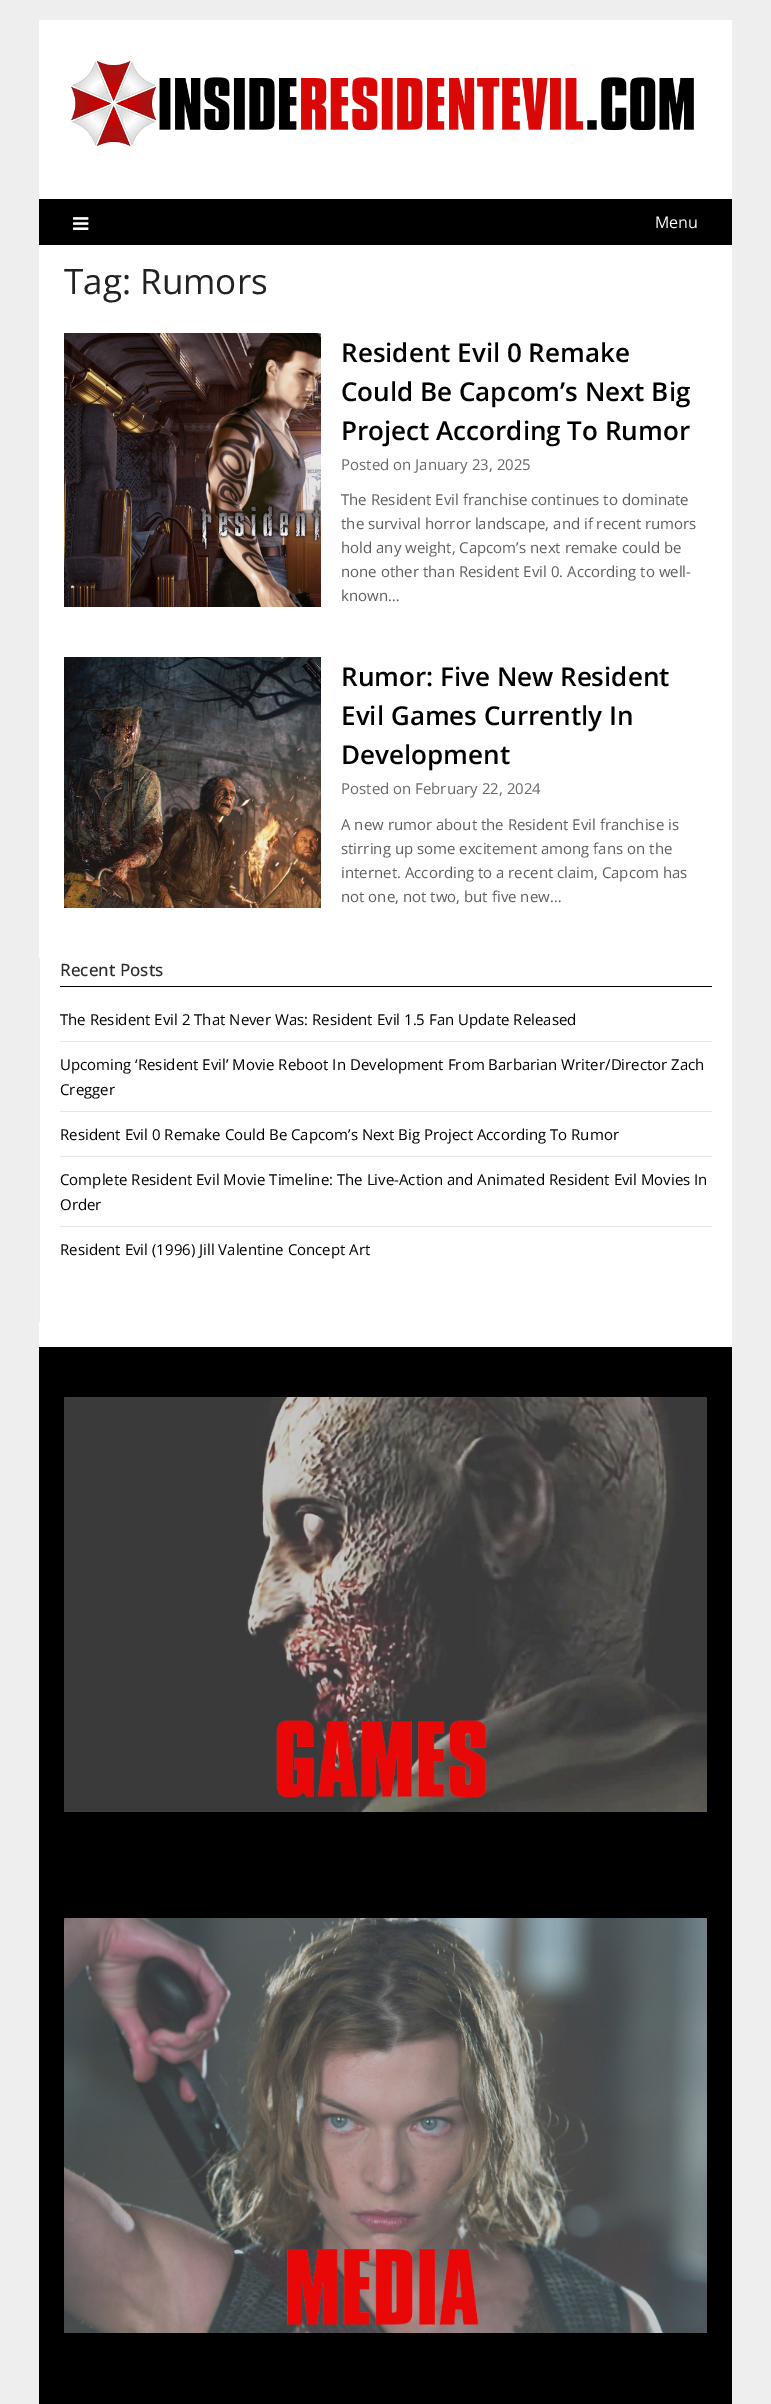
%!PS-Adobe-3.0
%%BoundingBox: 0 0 771 2404
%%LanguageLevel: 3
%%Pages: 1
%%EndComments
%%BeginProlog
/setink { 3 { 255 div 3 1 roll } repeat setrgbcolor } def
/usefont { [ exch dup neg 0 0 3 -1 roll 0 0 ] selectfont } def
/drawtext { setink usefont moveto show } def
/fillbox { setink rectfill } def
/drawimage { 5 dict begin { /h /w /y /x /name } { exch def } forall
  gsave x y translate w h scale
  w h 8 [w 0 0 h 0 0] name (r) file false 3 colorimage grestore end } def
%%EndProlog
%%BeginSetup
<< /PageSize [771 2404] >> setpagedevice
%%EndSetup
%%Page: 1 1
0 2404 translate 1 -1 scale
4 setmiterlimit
0 0 771 2404 238 238 238 fillbox
39 20 693 179 255 255 255 fillbox
(assets/img1.rgb) 71 60 623 87 drawimage
39 199 693 46 0 0 0 fillbox
(assets/img2.rgb) 73 217 16 13 drawimage
(Menu) 655 228 /OpenSans-Regular 16 255 255 255 drawtext
39 245 693 1102 255 255 255 fillbox
(Tag: Rumors) 64 294 /OpenSans-Regular 35 34 34 34 drawtext
(assets/img3.rgb) 64 333 257 274 drawimage
(Resident Evil 0 Remake) 341 362 /OpenSans-SemiBold 26 0 0 0 drawtext
(Could Be Capcom’s Next Big) 341 401 /OpenSans-SemiBold 26 0 0 0 drawtext
(Project According To Rumor) 341 440 /OpenSans-SemiBold 26 0 0 0 drawtext
(Posted on January 23, 2025) 341 470 /OpenSans-Regular 15 105 105 105 drawtext
(The Resident Evil franchise continues to dominate) 341 505 /OpenSans-Regular 15 94 94 94 drawtext
(the survival horror landscape, and if recent rumors) 341 529 /OpenSans-Regular 15 94 94 94 drawtext
(hold any weight, Capcom’s next remake could be) 341 553 /OpenSans-Regular 15 94 94 94 drawtext
(none other than Resident Evil 0. According to well-) 341 577 /OpenSans-Regular 15 94 94 94 drawtext
(known…) 341 601 /OpenSans-Regular 15 94 94 94 drawtext
(assets/img4.rgb) 64 657 257 251 drawimage
(Rumor: Five New Resident) 341 686 /OpenSans-SemiBold 26 0 0 0 drawtext
(Evil Games Currently In) 341 725 /OpenSans-SemiBold 26 0 0 0 drawtext
(Development) 341 764 /OpenSans-SemiBold 26 0 0 0 drawtext
(Posted on February 22, 2024) 341 794 /OpenSans-Regular 15 105 105 105 drawtext
(A new rumor about the Resident Evil franchise is) 341 830 /OpenSans-Regular 15 94 94 94 drawtext
(stirring up some excitement among fans on the) 341 854 /OpenSans-Regular 15 94 94 94 drawtext
(internet. According to a recent claim, Capcom has) 341 878 /OpenSans-Regular 15 94 94 94 drawtext
(not one, not two, but five new…) 341 902 /OpenSans-Regular 15 94 94 94 drawtext
39 958 1 364 236 236 236 fillbox
60 986 652 1 0 0 0 fillbox
(Recent Posts) 60 976 /OpenSans-Medium 17 43 43 43 drawtext
60 1041 652 1 230 230 230 fillbox
(The Resident Evil 2 That Never Was: Resident Evil 1.5 Fan Update Released) 60 1025 /OpenSans-Regular 15 0 0 0 drawtext
60 1111 652 1 230 230 230 fillbox
(Upcoming ‘Resident Evil’ Movie Reboot In Development From Barbarian Writer/Director Zach) 60 1070 /OpenSans-Regular 15 0 0 0 drawtext
(Cregger) 60 1095 /OpenSans-Regular 15 0 0 0 drawtext
60 1156 652 1 230 230 230 fillbox
(Resident Evil 0 Remake Could Be Capcom’s Next Big Project According To Rumor) 60 1140 /OpenSans-Regular 15 0 0 0 drawtext
60 1226 652 1 230 230 230 fillbox
(Complete Resident Evil Movie Timeline: The Live-Action and Animated Resident Evil Movies In) 60 1185 /OpenSans-Regular 15 0 0 0 drawtext
(Order) 60 1210 /OpenSans-Regular 15 0 0 0 drawtext
(Resident Evil \(1996\) Jill Valentine Concept Art) 60 1255 /OpenSans-Regular 15 0 0 0 drawtext
39 1347 693 1057 0 0 0 fillbox
(assets/img5.rgb) 64 1397 643 415 drawimage
(assets/img6.rgb) 64 1918 643 415 drawimage
showpage
%%EOF
